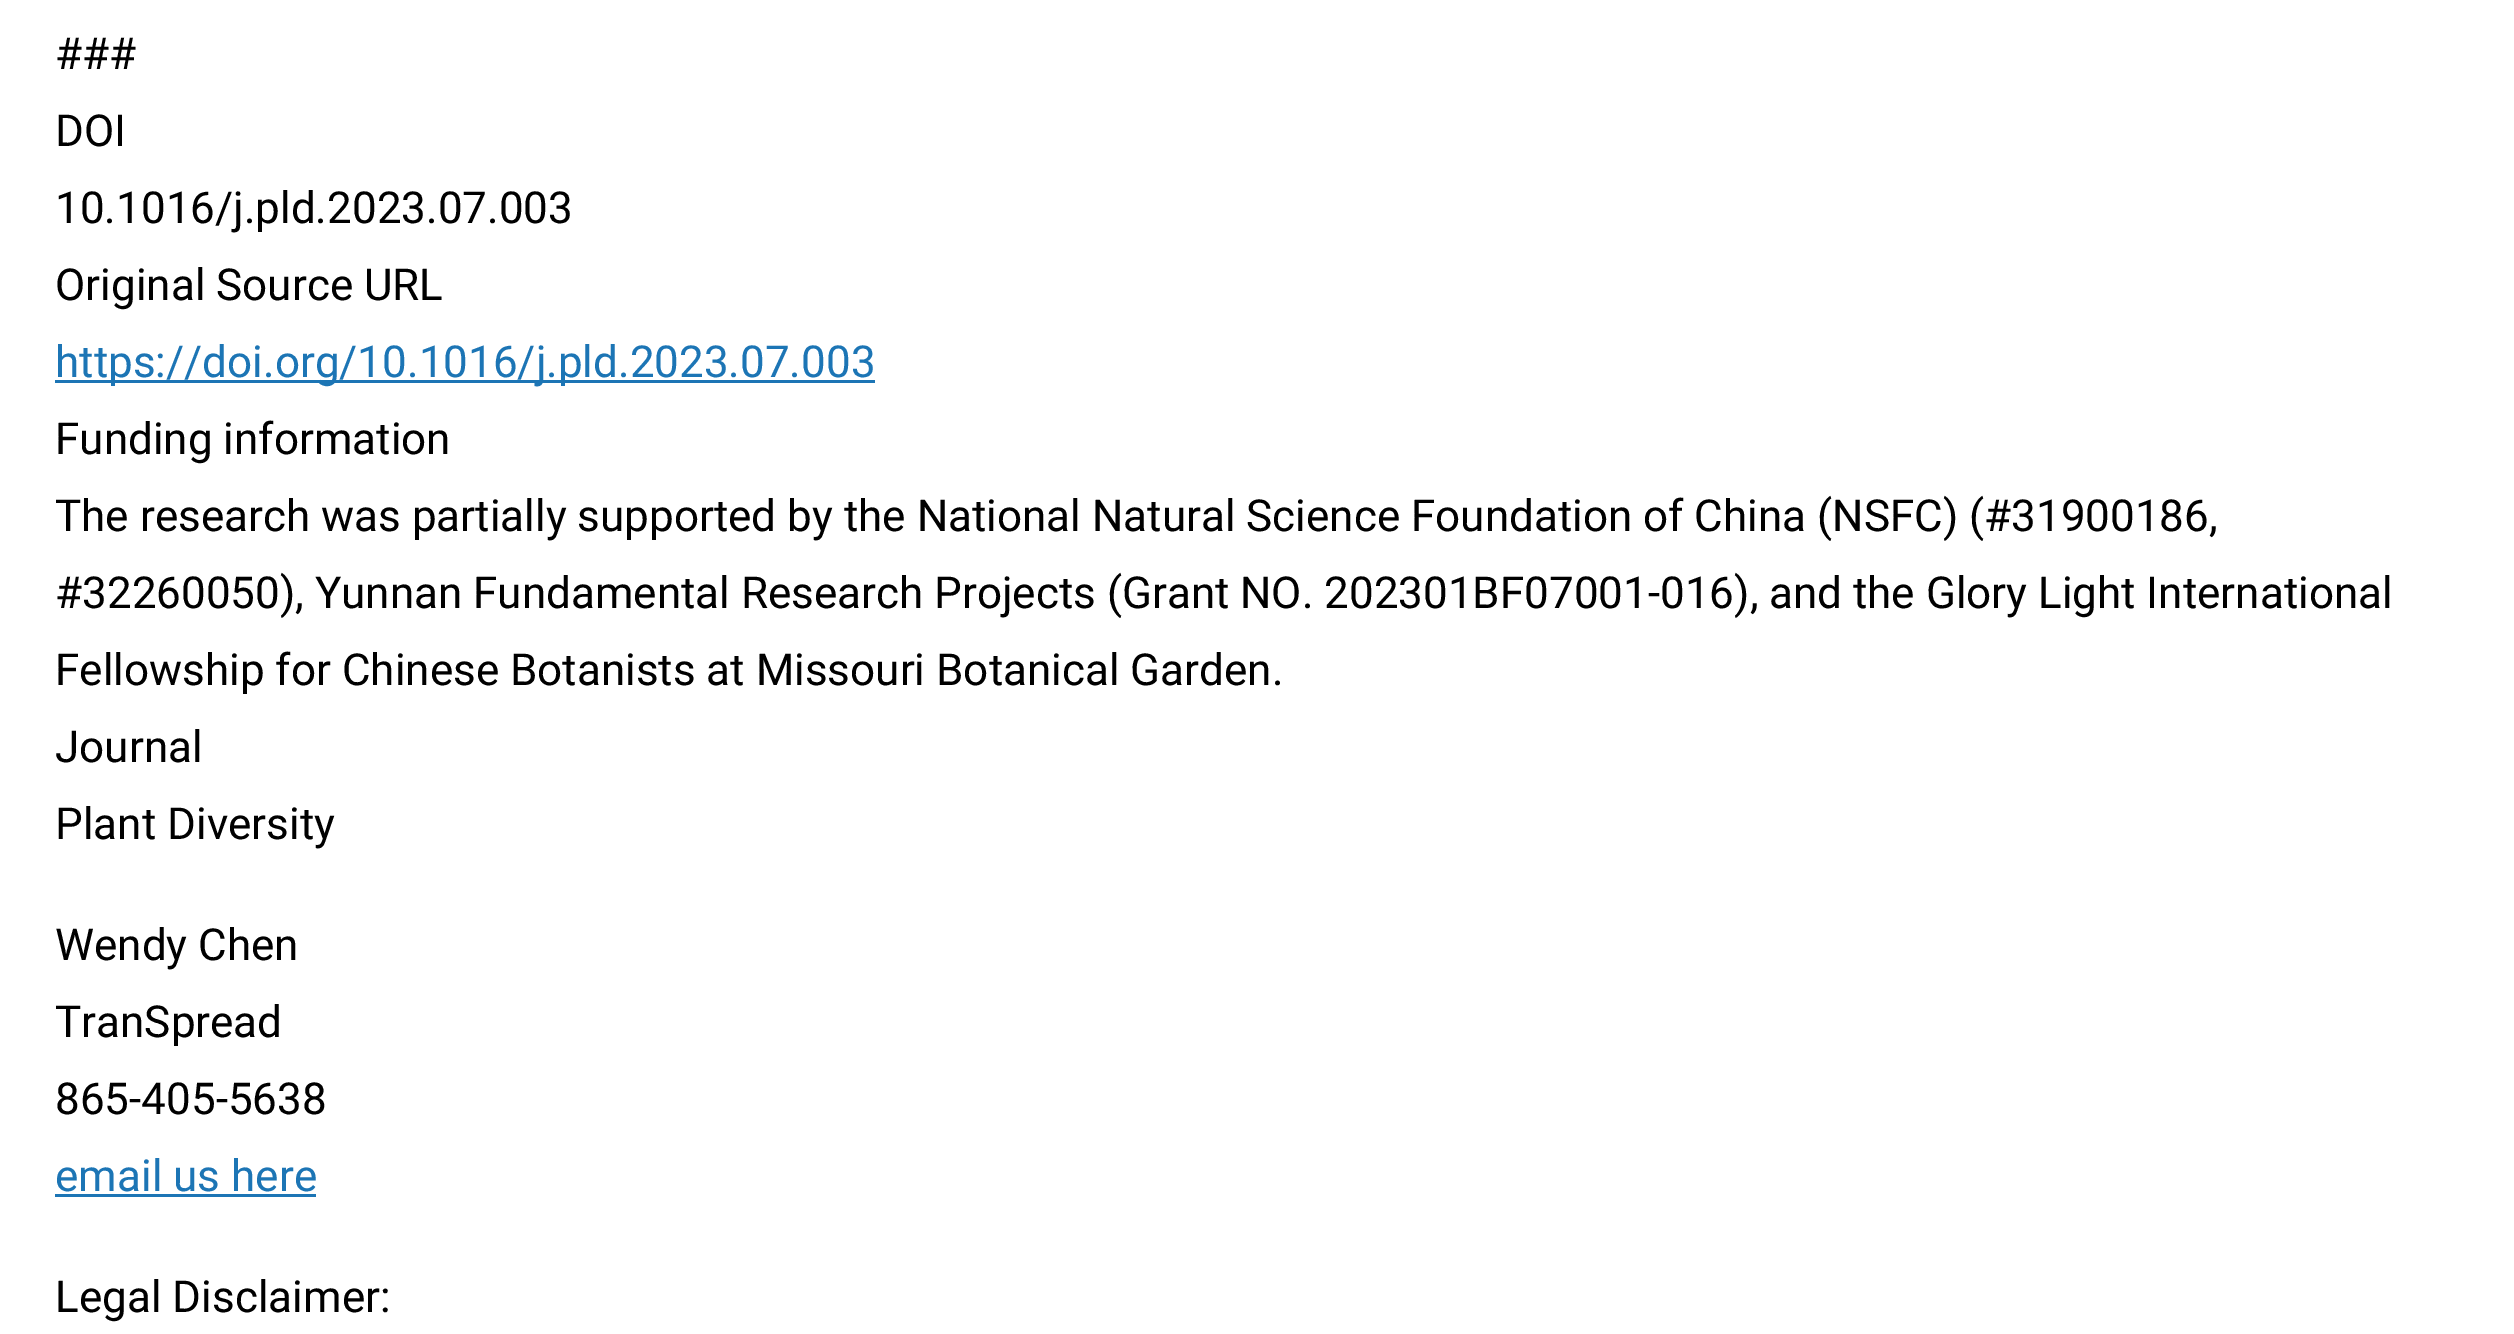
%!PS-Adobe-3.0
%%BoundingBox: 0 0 2514 1334
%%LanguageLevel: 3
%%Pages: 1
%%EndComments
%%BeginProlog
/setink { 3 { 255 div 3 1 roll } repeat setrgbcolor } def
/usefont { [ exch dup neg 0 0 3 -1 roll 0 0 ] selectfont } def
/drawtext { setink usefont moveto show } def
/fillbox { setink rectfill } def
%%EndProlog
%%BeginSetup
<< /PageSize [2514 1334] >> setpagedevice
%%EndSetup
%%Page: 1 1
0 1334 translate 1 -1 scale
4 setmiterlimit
0 0 2514 1334 255 255 255 fillbox
(###) 55 69 /Roboto-Regular 44 0 0 0 drawtext
(DOI) 55 146 /Roboto-Regular 44 0 0 0 drawtext
(10.1016/j.pld.2023.07.003) 55 223 /Roboto-Regular 44 0 0 0 drawtext
(Original Source URL) 55 300 /Roboto-Regular 44 0 0 0 drawtext
55 380 820 3 28 117 181 fillbox
(https://doi.org/10.1016/j.pld.2023.07.003) 55 377 /Roboto-Regular 44 28 117 181 drawtext
(Funding information) 55 454 /Roboto-Regular 44 0 0 0 drawtext
(The research was partially supported by the National Natural Science Foundation of China \(NSFC\) \(#31900186,) 55 531 /Roboto-Regular 44 0 0 0 drawtext
55 608 moveto -0.1 0 32 (#32260050\), Yunnan Fundamental Research Projects \(Grant NO. 202301BF07001-016\), and the Glory Light International) widthshow
(Fellowship for Chinese Botanists at Missouri Botanical Garden.) 55 685 /Roboto-Regular 44 0 0 0 drawtext
(Journal) 55 762 /Roboto-Regular 44 0 0 0 drawtext
(Plant Diversity) 55 839 /Roboto-Regular 44 0 0 0 drawtext
(Wendy Chen) 55 960 /Roboto-Regular 44 0 0 0 drawtext
(TranSpread) 55 1037 /Roboto-Regular 44 0 0 0 drawtext
(865-405-5638) 55 1114 /Roboto-Regular 44 0 0 0 drawtext
(email us here) 55 1191 /Roboto-Regular 44 28 117 181 drawtext
55 1194 261 3 28 117 181 fillbox
(Legal Disclaimer:) 55 1312 /Roboto-Regular 44 0 0 0 drawtext
showpage
%%EOF
